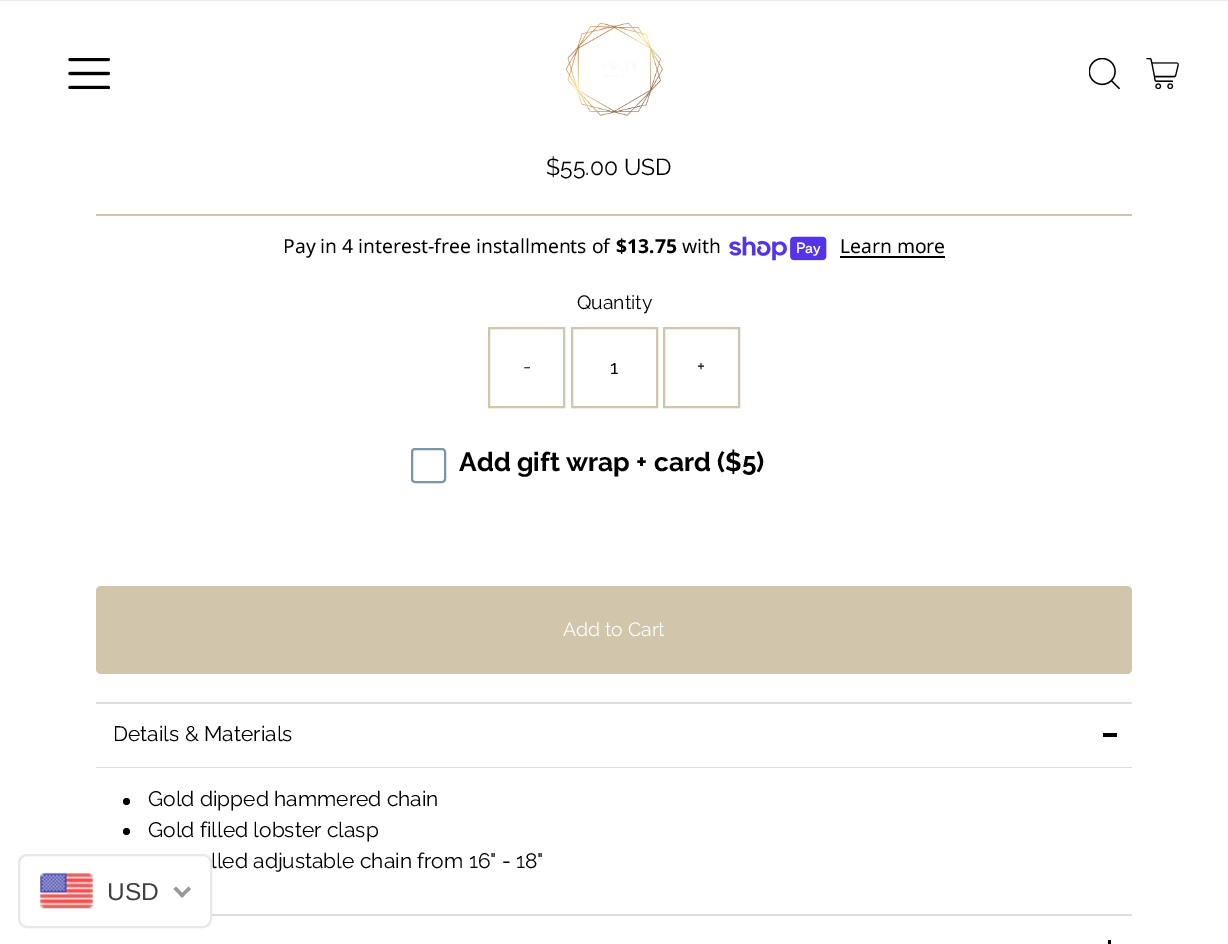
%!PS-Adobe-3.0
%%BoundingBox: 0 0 1228 944
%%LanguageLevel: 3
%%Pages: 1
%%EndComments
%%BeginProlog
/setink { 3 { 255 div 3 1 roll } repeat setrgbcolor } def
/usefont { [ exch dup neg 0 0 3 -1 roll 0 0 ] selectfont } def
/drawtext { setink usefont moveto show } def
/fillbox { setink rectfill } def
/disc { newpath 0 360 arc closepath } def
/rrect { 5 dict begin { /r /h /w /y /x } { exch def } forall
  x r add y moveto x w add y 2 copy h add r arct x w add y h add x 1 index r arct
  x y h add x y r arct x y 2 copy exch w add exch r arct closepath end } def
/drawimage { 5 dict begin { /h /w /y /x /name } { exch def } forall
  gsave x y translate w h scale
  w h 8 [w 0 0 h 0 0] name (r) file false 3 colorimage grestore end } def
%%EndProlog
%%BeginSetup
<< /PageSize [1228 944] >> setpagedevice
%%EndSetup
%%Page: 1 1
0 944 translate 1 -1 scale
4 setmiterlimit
0 0 1228 944 255 255 255 fillbox
0 0 1228 1 232 233 235 fillbox
(assets/img1.rgb) 68 58 42 31 drawimage
(assets/img2.rgb) 565 22 99 94 drawimage
(assets/img3.rgb) 1089 58 31 31 drawimage
(assets/img4.rgb) 1146 58 33 31 drawimage
96 214 1036 2 209 197 171 fillbox
($55.00 USD) 546 175 /Raleway-Regular 23 0 0 0 drawtext
(Pay in 4 interest-free installments of) 283 253 /NotoSans-Regular 19.3 0 0 0 drawtext
($13.75) 616 253 /NotoSans-Bold 19.3 0 0 0 drawtext
(with) 682 253 /NotoSans-Regular 19.3 0 0 0 drawtext
(assets/img5.rgb) 729 236 98 25 drawimage
(Learn more) 840 253 /NotoSans-Regular 19.3 0 0 0 drawtext
840 256 105 2 0 0 0 fillbox
(Quantity) 577 309 /Raleway-Regular 19.3 0 0 0 drawtext
209 197 171 setink
2 setlinewidth
489 328 75 79 rectstroke
(-) 523 373 /Raleway-Regular 19.3 0 0 0 drawtext
209 197 171 setink
572 328 85 79 rectstroke
(1) 610 374 /Raleway-Regular 19.3 0 0 0 drawtext
209 197 171 setink
664 328 75 79 rectstroke
(+) 697 373 /Raleway-Regular 19.3 0 0 0 drawtext
119 150 168 setink
412 449 33 33 3 rrect stroke
(Add gift wrap + card \($5\)) 459 471 /Raleway-Bold 26.25 0 0 0 drawtext
209 197 171 setink
96 586 1036 88 5 rrect fill
(Add to Cart) 563 636 /Raleway-Regular 19.3 255 255 255 drawtext
96 702 1036 2 221 221 221 fillbox
96 767 1036 1 221 221 221 fillbox
(Details & Materials) 113 741 /Raleway-Regular 21 0 0 0 drawtext
1103 733 14 4 0 0 0 fillbox
126.5 801.5 3.5 disc fill
(Gold dipped hammered chain) 148 806 /Raleway-Regular 21 0 0 0 drawtext
126.5 831.5 3.5 disc fill
(Gold filled lobster clasp) 148 837 /Raleway-Regular 21 0 0 0 drawtext
(lled adjustable chain from 16" - 18") 211 868 /Raleway-Regular 21 0 0 0 drawtext
212 914 920 2 221 221 221 fillbox
1108 940 3 4 0 0 0 fillbox
232 232 232 setink
19 855 192 72 8 rrect stroke
(assets/img6.rgb) 40 872 54 37 drawimage
(USD) 107 900 /LiberationSans-Regular 24.5 64 63 63 drawtext
153 153 153 setink
188.5 886.5 moveto 191 889 lineto 182 897.5 lineto 179.5 895.5 lineto closepath fill
176 886.5 moveto 184.5 895.5 lineto 182 897.5 lineto 173.5 889 lineto closepath fill
showpage
%%EOF
